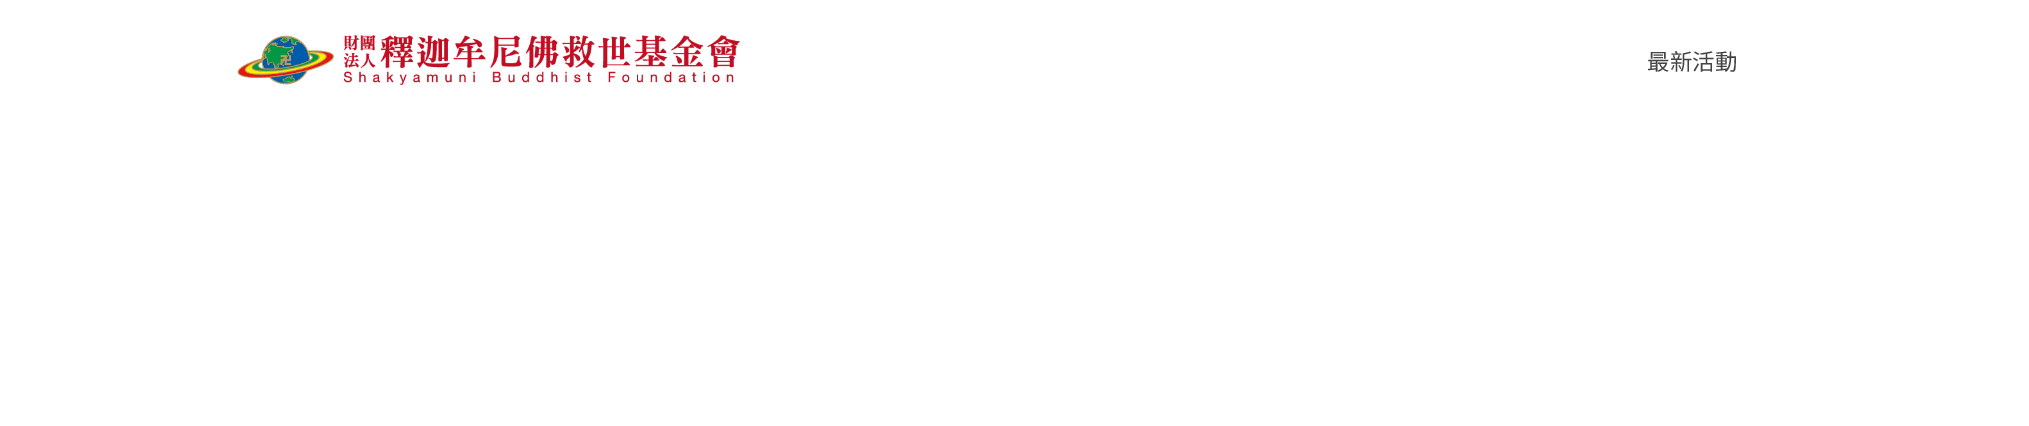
%!PS-Adobe-3.0
%%BoundingBox: 0 0 2029 426
%%LanguageLevel: 3
%%Pages: 1
%%EndComments
%%BeginProlog
/setink { 3 { 255 div 3 1 roll } repeat setrgbcolor } def
/usefont { [ exch dup neg 0 0 3 -1 roll 0 0 ] selectfont } def
/drawtext { setink usefont moveto show } def
/fillbox { setink rectfill } def
/drawimage { 5 dict begin { /h /w /y /x /name } { exch def } forall
  gsave x y translate w h scale
  w h 8 [w 0 0 h 0 0] name (r) file false 3 colorimage grestore end } def
%%EndProlog
%%BeginSetup
<< /PageSize [2029 426] >> setpagedevice
%%EndSetup
%%Page: 1 1
0 426 translate 1 -1 scale
4 setmiterlimit
0 0 2029 426 255 255 255 fillbox
(assets/img1.rgb) 237 35 503 50 drawimage
(最新活動) 1647 70 /NotoSansTC-Regular 22.5 68 68 68 drawtext
showpage
%%EOF
